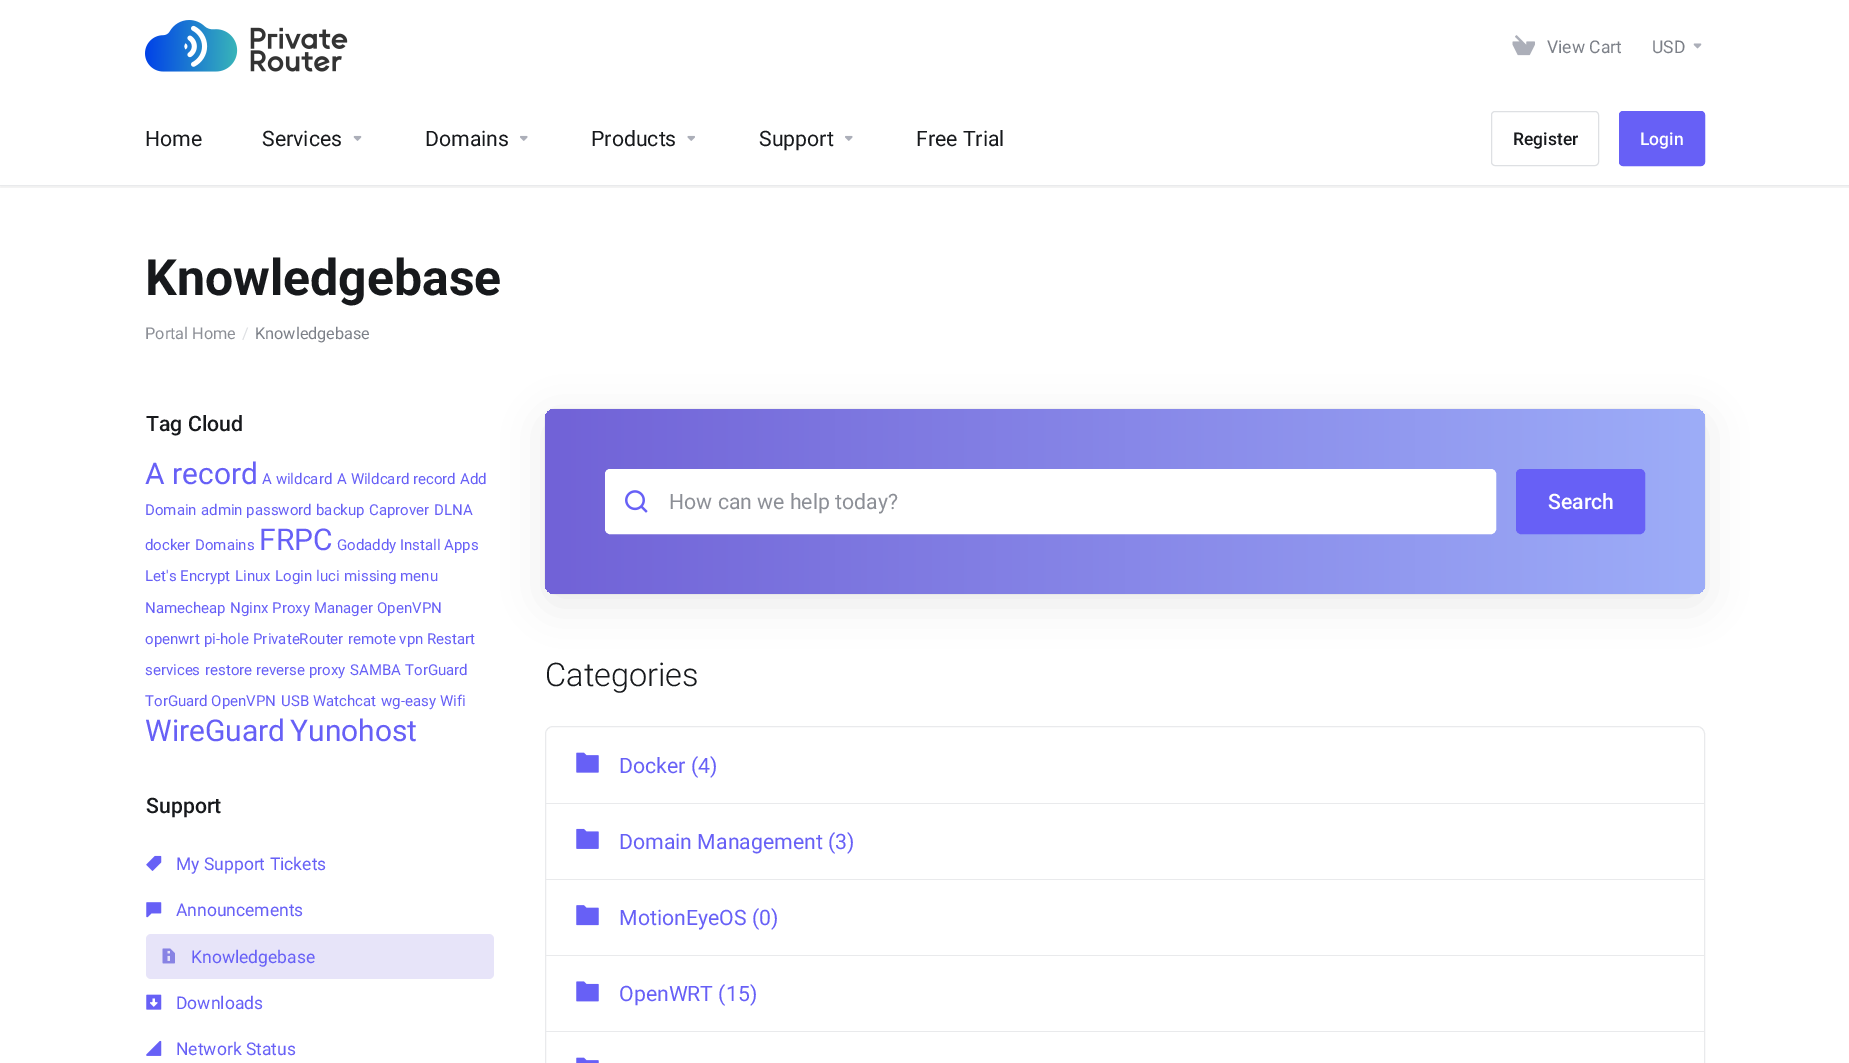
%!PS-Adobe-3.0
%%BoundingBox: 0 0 1849 1063
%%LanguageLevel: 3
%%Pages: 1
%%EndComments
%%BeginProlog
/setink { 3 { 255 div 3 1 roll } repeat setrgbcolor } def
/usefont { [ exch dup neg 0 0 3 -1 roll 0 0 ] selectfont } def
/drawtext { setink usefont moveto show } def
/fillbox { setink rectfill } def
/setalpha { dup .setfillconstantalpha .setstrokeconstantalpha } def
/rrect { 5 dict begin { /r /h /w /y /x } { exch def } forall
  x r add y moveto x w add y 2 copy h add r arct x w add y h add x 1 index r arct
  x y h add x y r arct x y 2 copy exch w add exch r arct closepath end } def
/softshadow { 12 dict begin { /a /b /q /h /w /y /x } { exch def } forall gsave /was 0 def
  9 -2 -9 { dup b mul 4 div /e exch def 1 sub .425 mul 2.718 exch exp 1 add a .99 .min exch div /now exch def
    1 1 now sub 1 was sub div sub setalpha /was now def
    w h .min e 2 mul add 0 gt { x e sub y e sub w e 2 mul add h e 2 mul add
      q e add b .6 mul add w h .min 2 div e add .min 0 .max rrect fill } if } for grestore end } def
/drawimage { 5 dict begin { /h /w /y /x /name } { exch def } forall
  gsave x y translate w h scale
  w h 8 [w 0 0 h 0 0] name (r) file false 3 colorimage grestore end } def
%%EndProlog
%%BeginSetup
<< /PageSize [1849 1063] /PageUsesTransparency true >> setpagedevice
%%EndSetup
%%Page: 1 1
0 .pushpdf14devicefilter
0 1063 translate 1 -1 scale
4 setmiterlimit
0 0 1849 1063 255 255 255 fillbox
gsave
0 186 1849 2 rectclip
0 0 0 setink
0 1 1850 187 0 0.5 0.05 softshadow
grestore
0 185 1849 1 233 234 236 fillbox
(assets/img1.rgb) 145 20 203 52 drawimage
(assets/img2.rgb) 1512 35 23 21 drawimage
(View Cart) 1547 53 /Roboto-Regular 17.5 124 128 136 drawtext
(USD) 1652 53 /Roboto-Regular 17.5 124 128 136 drawtext
(assets/img3.rgb) 1693 43 9 6 drawimage
(Home) 145 146 /Roboto-Regular 21.25 23 25 28 drawtext
(Services) 262 146 /Roboto-Regular 21.25 23 25 28 drawtext
(assets/img4.rgb) 353 135 9 6 drawimage
(Domains) 425 146 /Roboto-Regular 21.25 23 25 28 drawtext
(assets/img5.rgb) 520 135 8 6 drawimage
(Products) 591 146 /Roboto-Regular 21.25 23 25 28 drawtext
(assets/img6.rgb) 687 135 8 6 drawimage
(Support) 759 146 /Roboto-Regular 21.25 23 25 28 drawtext
(assets/img5.rgb) 845 135 8 6 drawimage
(Free Trial) 916 146 /Roboto-Regular 21.25 23 25 28 drawtext
222 224 227 setink
1491.5 111.5 107 54 3.5 rrect stroke
(Register) 1513 145 /Roboto-Medium 17.5 23 25 28 drawtext
103 96 246 setink
1619.5 111.5 85 54 3.5 rrect gsave fill grestore
stroke
(Login) 1640 145 /Roboto-Medium 17.5 255 255 255 drawtext
(Knowledgebase) 145 295 /Roboto-Bold 50 23 25 28 drawtext
(Portal Home) 145 339 /Roboto-Regular 16.25 140 143 150 drawtext
(/) 242 339 /Roboto-Regular 16.25 222 224 227 drawtext
(Knowledgebase) 255 339 /Roboto-Regular 16.25 124 128 136 drawtext
(Tag Cloud) 146 431 /Roboto-Medium 21.25 23 25 28 drawtext
(A record) 145 484 /Roboto-Regular 30 103 96 246 drawtext
(A wildcard) 262 484 /Roboto-Regular 15 103 96 246 drawtext
(A Wildcard record) 337 484 /Roboto-Regular 15 103 96 246 drawtext
0 0 0 setink
545 419 1160 185 10 20 0.08 softshadow
(Add) 460 484 /Roboto-Regular 15 103 96 246 drawtext
(Domain) 145 515 /Roboto-Regular 15 103 96 246 drawtext
(admin password) 201 515 /Roboto-Regular 15 103 96 246 drawtext
(backup) 316 515 /Roboto-Regular 15 103 96 246 drawtext
(Caprover) 369 515 /Roboto-Regular 15 103 96 246 drawtext
(DLNA) 434 515 /Roboto-Regular 15 103 96 246 drawtext
(docker) 145 550 /Roboto-Regular 15 103 96 246 drawtext
(Domains) 195 550 /Roboto-Regular 15 103 96 246 drawtext
(FRPC) 259 550 /Roboto-Regular 30 103 96 246 drawtext
(Godaddy) 337 550 /Roboto-Regular 15 103 96 246 drawtext
(Install Apps) 400 550 /Roboto-Regular 15 103 96 246 drawtext
(Let's Encrypt) 145 581 /Roboto-Regular 15 103 96 246 drawtext
(Linux) 235 581 /Roboto-Regular 15 103 96 246 drawtext
(Login) 275 581 /Roboto-Regular 15 103 96 246 drawtext
(luci) 316 581 /Roboto-Regular 15 103 96 246 drawtext
(missing menu) 344 581 /Roboto-Regular 15 103 96 246 drawtext
(Namecheap) 145 613 /Roboto-Regular 15 103 96 246 drawtext
(Nginx Proxy Manager) 230 613 /Roboto-Regular 15 103 96 246 drawtext
(OpenVPN) 377 613 /Roboto-Regular 15 103 96 246 drawtext
(openwrt) 145 644 /Roboto-Regular 15 103 96 246 drawtext
(pi-hole) 204 644 /Roboto-Regular 15 103 96 246 drawtext
(PrivateRouter) 253 644 /Roboto-Regular 15 103 96 246 drawtext
(remote vpn) 348 644 /Roboto-Regular 15 103 96 246 drawtext
(Restart) 427 644 /Roboto-Regular 15 103 96 246 drawtext
(services) 145 675 /Roboto-Regular 15 103 96 246 drawtext
(restore) 205 675 /Roboto-Regular 15 103 96 246 drawtext
(reverse proxy) 256 675 /Roboto-Regular 15 103 96 246 drawtext
(SAMBA) 350 675 /Roboto-Regular 15 103 96 246 drawtext
(TorGuard) 405 675 /Roboto-Regular 15 103 96 246 drawtext
(TorGuard OpenVPN) 145 706 /Roboto-Regular 15 103 96 246 drawtext
(USB) 281 706 /Roboto-Regular 15 103 96 246 drawtext
(Watchcat) 313 706 /Roboto-Regular 15 103 96 246 drawtext
(wg-easy) 381 706 /Roboto-Regular 15 103 96 246 drawtext
(Wifi) 440 706 /Roboto-Regular 15 103 96 246 drawtext
(WireGuard) 145 741 /Roboto-Regular 30 103 96 246 drawtext
(Yunohost) 290 741 /Roboto-Regular 30 103 96 246 drawtext
(Support) 146 813 /Roboto-Medium 21.25 23 25 28 drawtext
(assets/img7.rgb) 146 855 16 16 drawimage
(My Support Tickets) 176 870 /Roboto-Regular 17.5 103 96 246 drawtext
(assets/img8.rgb) 146 902 16 16 drawimage
(Announcements) 176 916 /Roboto-Regular 17.5 103 96 246 drawtext
231 228 249 setink
146 934 348 45 5 rrect fill
(assets/img9.rgb) 162 948 13 16 drawimage
(Knowledgebase) 191 963 /Roboto-Regular 17.5 103 96 246 drawtext
(assets/img10.rgb) 146 994 16 16 drawimage
(Downloads) 176 1009 /Roboto-Regular 17.5 103 96 246 drawtext
(assets/img11.rgb) 146 1040 16 16 drawimage
(Network Status) 176 1055 /Roboto-Regular 17.5 103 96 246 drawtext
0 0 0 setink
545 409 1160 185 10 0.5 0.12 softshadow
gsave 545 409 1160 185 10 rrect clip newpath
<< /ShadingType 2 /ColorSpace /DeviceRGB /Coords [545 501 1705 501] /Extend [true true] /Function << /FunctionType 2 /Domain [0 1] /C0 [0.443 0.384 0.843] /C1 [0.616 0.678 0.973] /N 1 >> >> shfill grestore
255 255 255 setink
605.5 469.5 890 64 4.5 rrect gsave fill grestore
stroke
(assets/img12.rgb) 625 490 23 23 drawimage
(How can we help today?) 669 509 /Roboto-Regular 21.25 140 143 150 drawtext
103 96 246 setink
1516.5 469.5 128 64 4.5 rrect gsave fill grestore
stroke
(Search) 1548 509 /Roboto-Medium 21.25 255 255 255 drawtext
(Categories) 545 686 /Roboto-Light 32.5 23 25 28 drawtext
233 234 236 setink
545.5 726.5 1159 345 7.5 rrect stroke
546 803 1158 1 233 234 236 fillbox
(assets/img13.rgb) 576 752 23 21 drawimage
(Docker \(4\)) 619 773 /Roboto-Regular 21.25 103 96 246 drawtext
546 879 1158 1 233 234 236 fillbox
(assets/img14.rgb) 576 828 23 21 drawimage
(Domain Management \(3\)) 619 849 /Roboto-Regular 21.25 103 96 246 drawtext
546 955 1158 1 233 234 236 fillbox
(assets/img15.rgb) 576 905 23 21 drawimage
(MotionEyeOS \(0\)) 619 925 /Roboto-Regular 21.25 103 96 246 drawtext
546 1031 1158 1 233 234 236 fillbox
(assets/img16.rgb) 576 981 23 21 drawimage
(OpenWRT \(15\)) 619 1001 /Roboto-Regular 21.25 103 96 246 drawtext
(assets/img17.rgb) 576 1057 23 6 drawimage
.poppdf14devicefilter showpage
%%EOF
